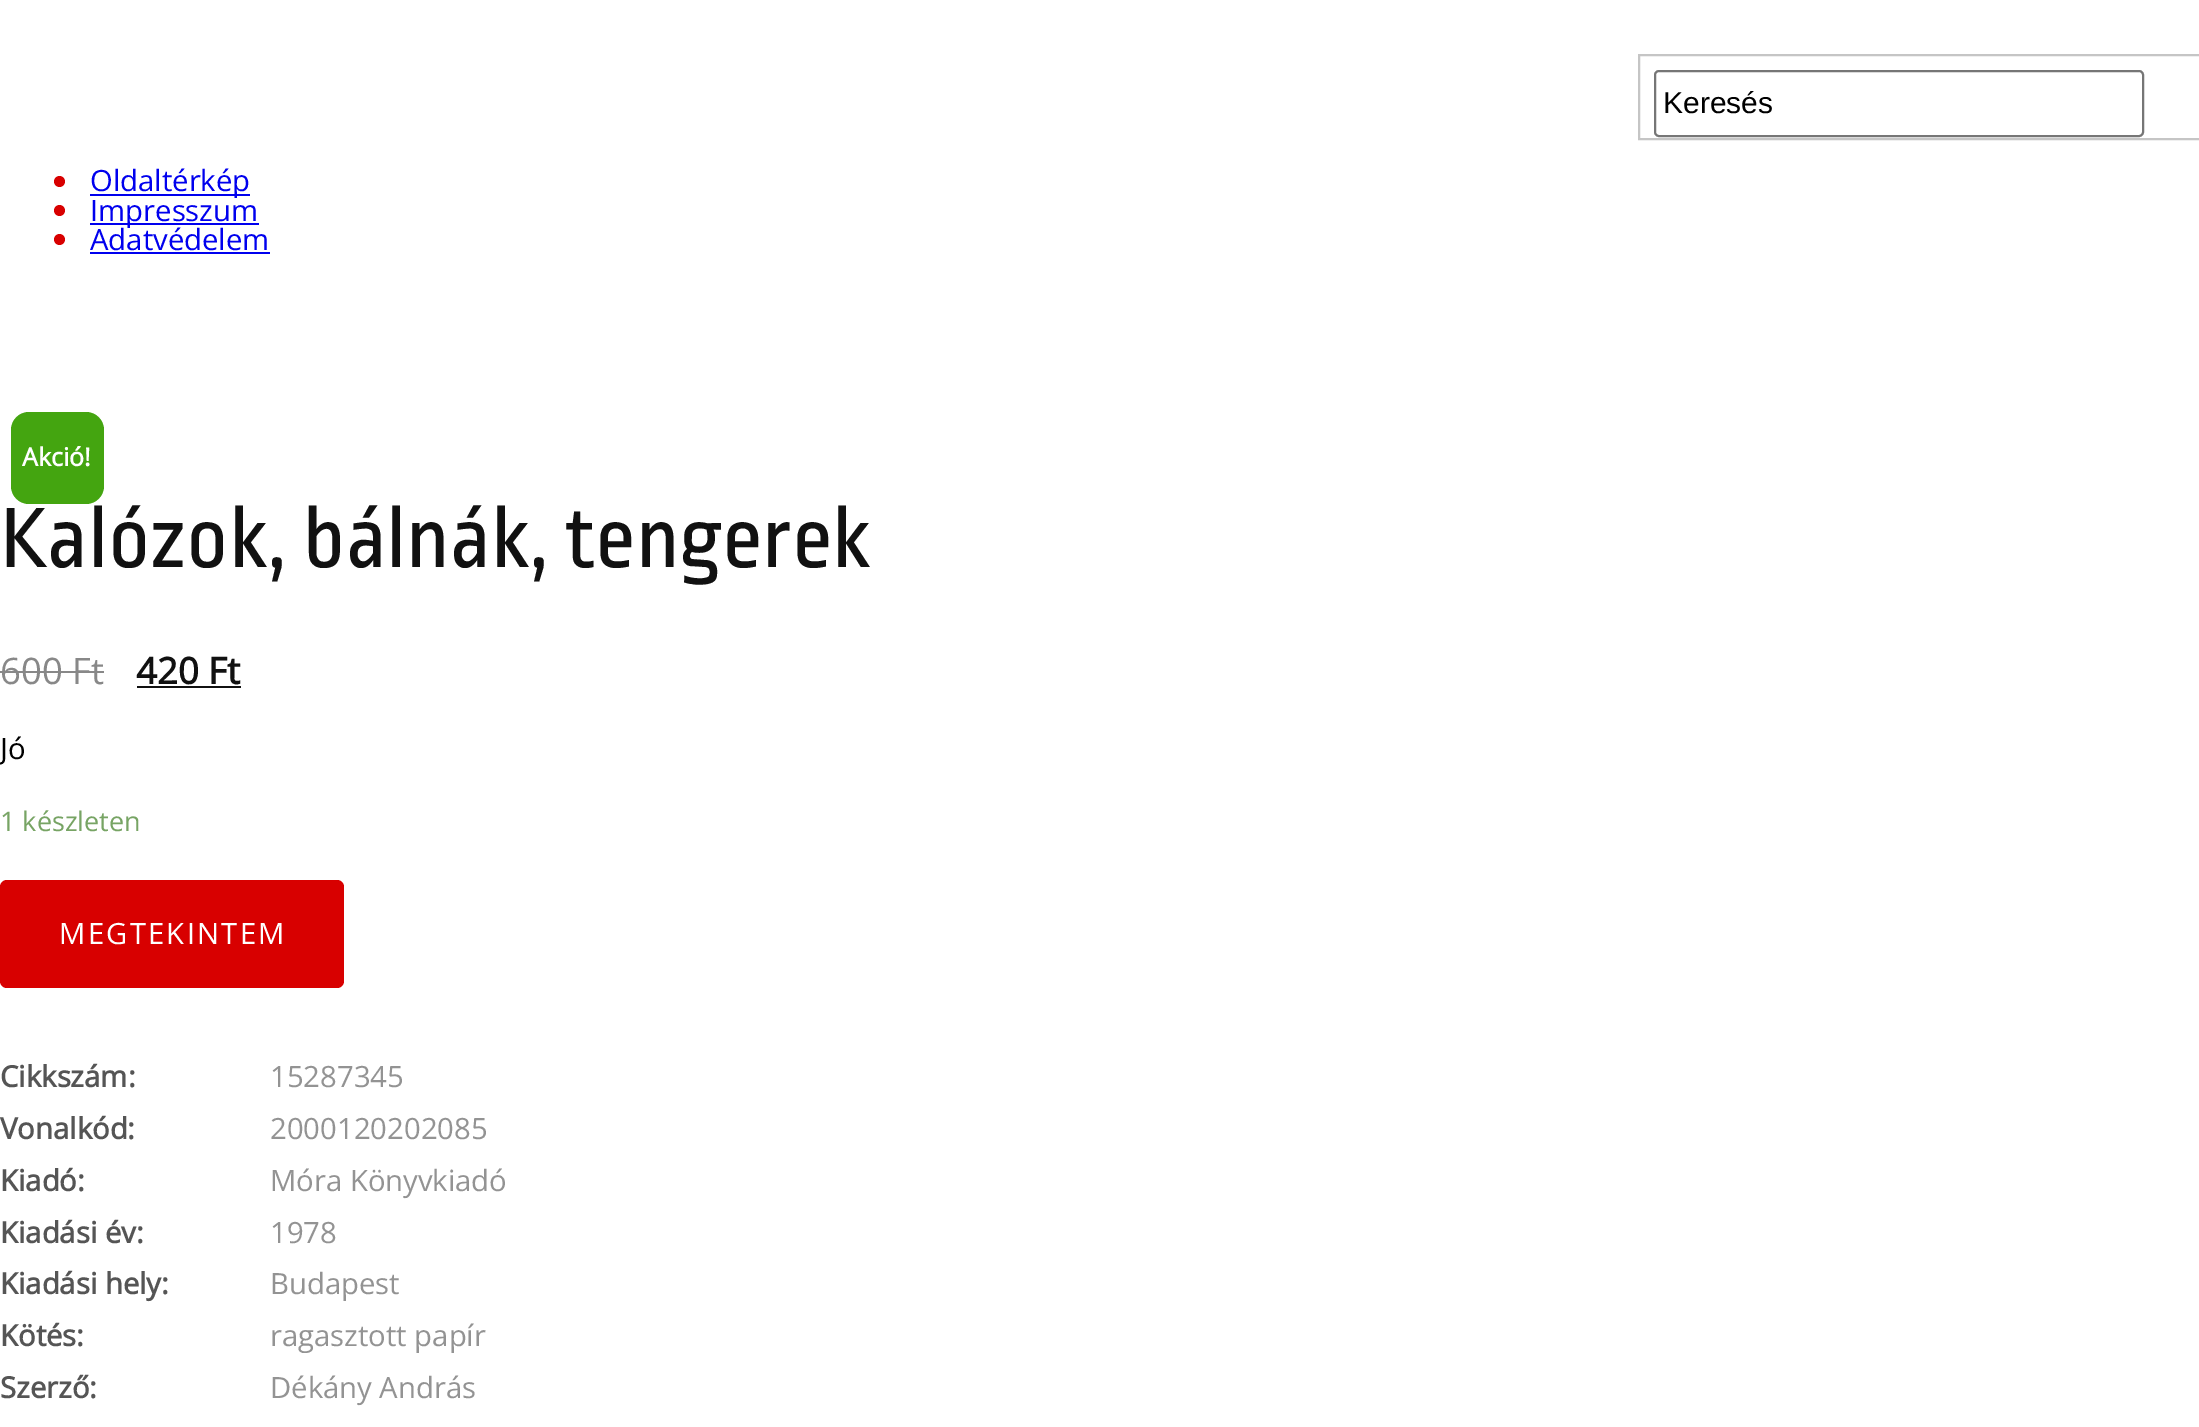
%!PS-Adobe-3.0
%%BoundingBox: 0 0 2199 1427
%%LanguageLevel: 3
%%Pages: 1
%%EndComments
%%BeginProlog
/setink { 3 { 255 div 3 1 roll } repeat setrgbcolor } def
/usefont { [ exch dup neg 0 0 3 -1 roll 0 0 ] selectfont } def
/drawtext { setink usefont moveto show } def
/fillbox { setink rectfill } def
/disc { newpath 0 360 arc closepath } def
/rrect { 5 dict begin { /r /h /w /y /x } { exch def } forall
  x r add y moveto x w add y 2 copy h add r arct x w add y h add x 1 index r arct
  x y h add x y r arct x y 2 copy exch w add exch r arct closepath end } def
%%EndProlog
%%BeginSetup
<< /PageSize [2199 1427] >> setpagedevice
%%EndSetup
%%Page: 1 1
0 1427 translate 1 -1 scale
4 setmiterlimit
0 0 2199 1427 255 255 255 fillbox
197 197 197 setink
2 setlinewidth
1639 55 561 84 rectstroke
118 118 118 setink
1655 71 488 65 4 rrect stroke
(Keresés) 1663 113 /LiberationSans-Regular 30 0 0 0 drawtext
216 0 0 setink
59.5 181.5 5.5 disc fill
90 194 160 2 0 0 238 fillbox
(Oldaltérkép) 90 191 /OpenSans-Regular 29.25 0 0 238 drawtext
216 0 0 setink
59.5 210.5 5.5 disc fill
90 223 169 2 0 0 238 fillbox
(Impresszum) 90 221 /OpenSans-Regular 29.25 0 0 238 drawtext
216 0 0 setink
59.5 239.5 5.5 disc fill
(Adatvédelem) 90 250 /OpenSans-Regular 29.25 0 0 238 drawtext
90 252 180 2 0 0 238 fillbox
68 165 16 setink
11 412 93 92 18 rrect fill
(Akció!) 22 466 /OpenSans-Bold 25 255 255 255 drawtext
(Kalózok, bálnák, tengerek) 0 567 /RopaSans-Regular 90 17 17 17 drawtext
(600 Ft) 0 684 /OpenSans-Regular 36.5 136 136 136 drawtext
0 671 104 2 136 136 136 fillbox
(420 Ft) 136 684 /OpenSans-Bold 36.5 17 17 17 drawtext
137 686 104 2 17 17 17 fillbox
(Jó) 0 759 /OpenSans-Regular 29.25 0 0 0 drawtext
(1 készleten) 0 831 /OpenSans-Regular 27 119 164 100 drawtext
216 0 0 setink
0 880 344 108 7 rrect fill
/OpenSans-Regular 29.25 usefont
255 255 255 setink
59 944 moveto 2.25 0 (MEGTEKINTEM) ashow
(Cikkszám:) 0 1087 /OpenSans-Bold 29.25 85 85 85 drawtext
(15287345) 270 1087 /OpenSans-Regular 29.25 147 147 147 drawtext
(Vonalkód:) 0 1139 /OpenSans-Bold 29.25 85 85 85 drawtext
(2000120202085) 270 1139 /OpenSans-Regular 29.25 147 147 147 drawtext
(Kiadó:) 0 1191 /OpenSans-Bold 29.25 85 85 85 drawtext
(Móra Könyvkiadó) 270 1191 /OpenSans-Regular 29.25 147 147 147 drawtext
(Kiadási év:) 0 1243 /OpenSans-Bold 29.25 85 85 85 drawtext
(1978) 270 1243 /OpenSans-Regular 29.25 147 147 147 drawtext
(Kiadási hely:) 0 1294 /OpenSans-Bold 29.25 85 85 85 drawtext
(Budapest) 270 1294 /OpenSans-Regular 29.25 147 147 147 drawtext
(Kötés:) 0 1346 /OpenSans-Bold 29.25 85 85 85 drawtext
(ragasztott papír) 270 1346 /OpenSans-Regular 29.25 147 147 147 drawtext
(Szerző:) 0 1398 /OpenSans-Bold 29.25 85 85 85 drawtext
(Dékány András) 270 1398 /OpenSans-Regular 29.25 147 147 147 drawtext
showpage
%%EOF
